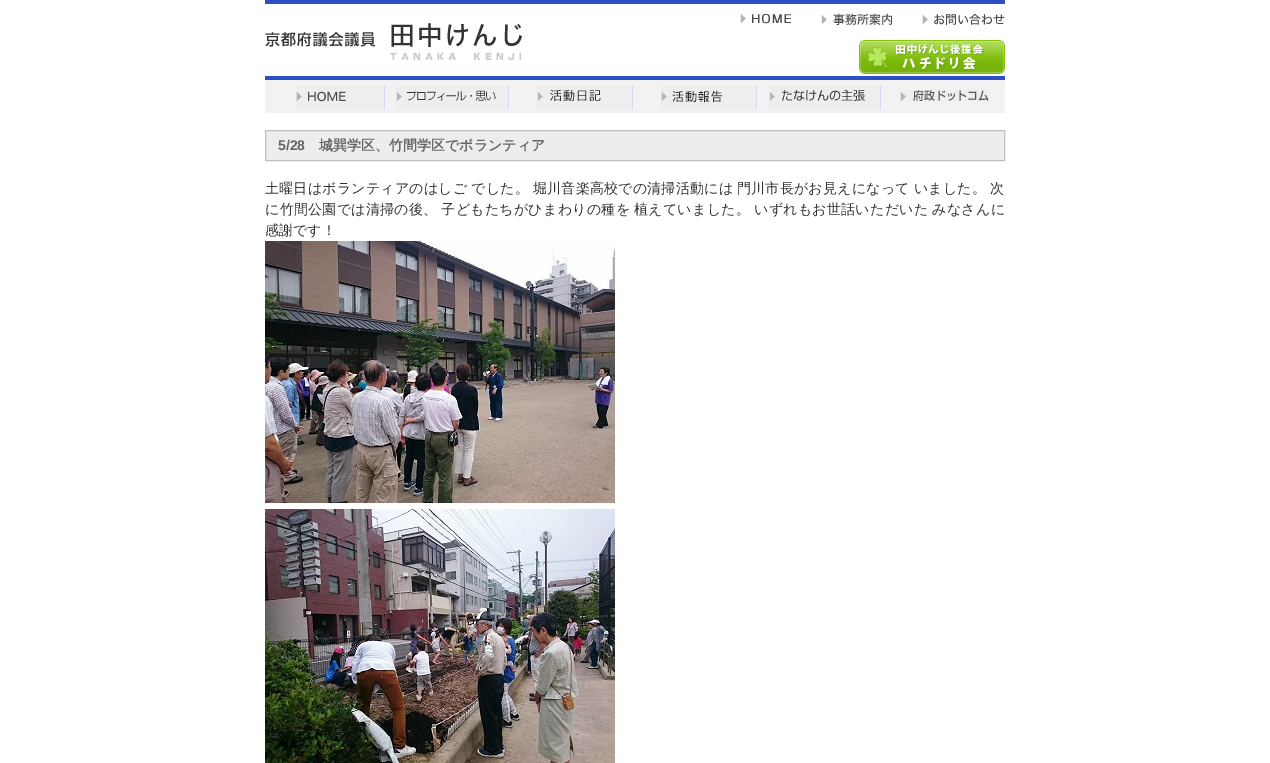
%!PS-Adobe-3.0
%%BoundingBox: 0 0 1270 763
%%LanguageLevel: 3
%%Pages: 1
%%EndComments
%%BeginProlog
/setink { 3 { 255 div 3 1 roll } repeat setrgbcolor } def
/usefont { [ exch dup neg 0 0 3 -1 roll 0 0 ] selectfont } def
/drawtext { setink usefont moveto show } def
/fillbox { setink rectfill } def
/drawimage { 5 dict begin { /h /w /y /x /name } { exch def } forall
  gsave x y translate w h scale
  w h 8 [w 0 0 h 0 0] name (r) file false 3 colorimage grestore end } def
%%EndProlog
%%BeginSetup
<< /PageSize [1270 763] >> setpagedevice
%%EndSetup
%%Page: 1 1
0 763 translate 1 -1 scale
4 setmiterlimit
0 0 1270 763 255 255 255 fillbox
265 0 740 4 43 79 196 fillbox
265 76 740 4 43 79 196 fillbox
(assets/img1.rgb) 265 23 257 37 drawimage
(assets/img2.rgb) 740 13 51 11 drawimage
(assets/img3.rgb) 821 13 71 12 drawimage
(assets/img4.rgb) 922 14 83 11 drawimage
(assets/img5.rgb) 859 40 146 34 drawimage
265 80 740 33 242 242 242 fillbox
(assets/img6.rgb) 296 85 89 25 drawimage
(assets/img7.rgb) 396 85 113 25 drawimage
(assets/img8.rgb) 537 85 96 25 drawimage
(assets/img9.rgb) 661 85 96 25 drawimage
(assets/img10.rgb) 769 85 112 25 drawimage
(assets/img11.rgb) 900 90 89 11 drawimage
237 237 237 setink
265.5 130.5 moveto 1004.5 130.5 lineto 1004.5 160.5 lineto 265.5 160.5 lineto closepath gsave fill grestore
191 191 191 setink
stroke
(5/28) 278 150 /LiberationSans-Bold 14 102 102 102 drawtext
(城巽学区、竹間学区でボランティア) 319 150 /WenQuanYiZenHei-Bold 14 102 102 102 drawtext
/WenQuanYiZenHei-Medium 14 usefont
51 51 51 setink
265 193 moveto -0.5 0 32 0.2 0 (土曜日はボランティアのはしご でした。 堀川音楽高校での清掃活動には 門川市長がお見えになって いました。 次) awidthshow
265 214 moveto -0.5 0 32 0.25 0 (に竹間公園では清掃の後、 子どもたちがひまわりの種を 植えていました。 いずれもお世話いただいた みなさんに) awidthshow
(感謝です！) 265 235 /WenQuanYiZenHei-Medium 14 51 51 51 drawtext
(assets/img12.rgb) 265 241 350 262 drawimage
(assets/img13.rgb) 265 509 350 254 drawimage
showpage
%%EOF
